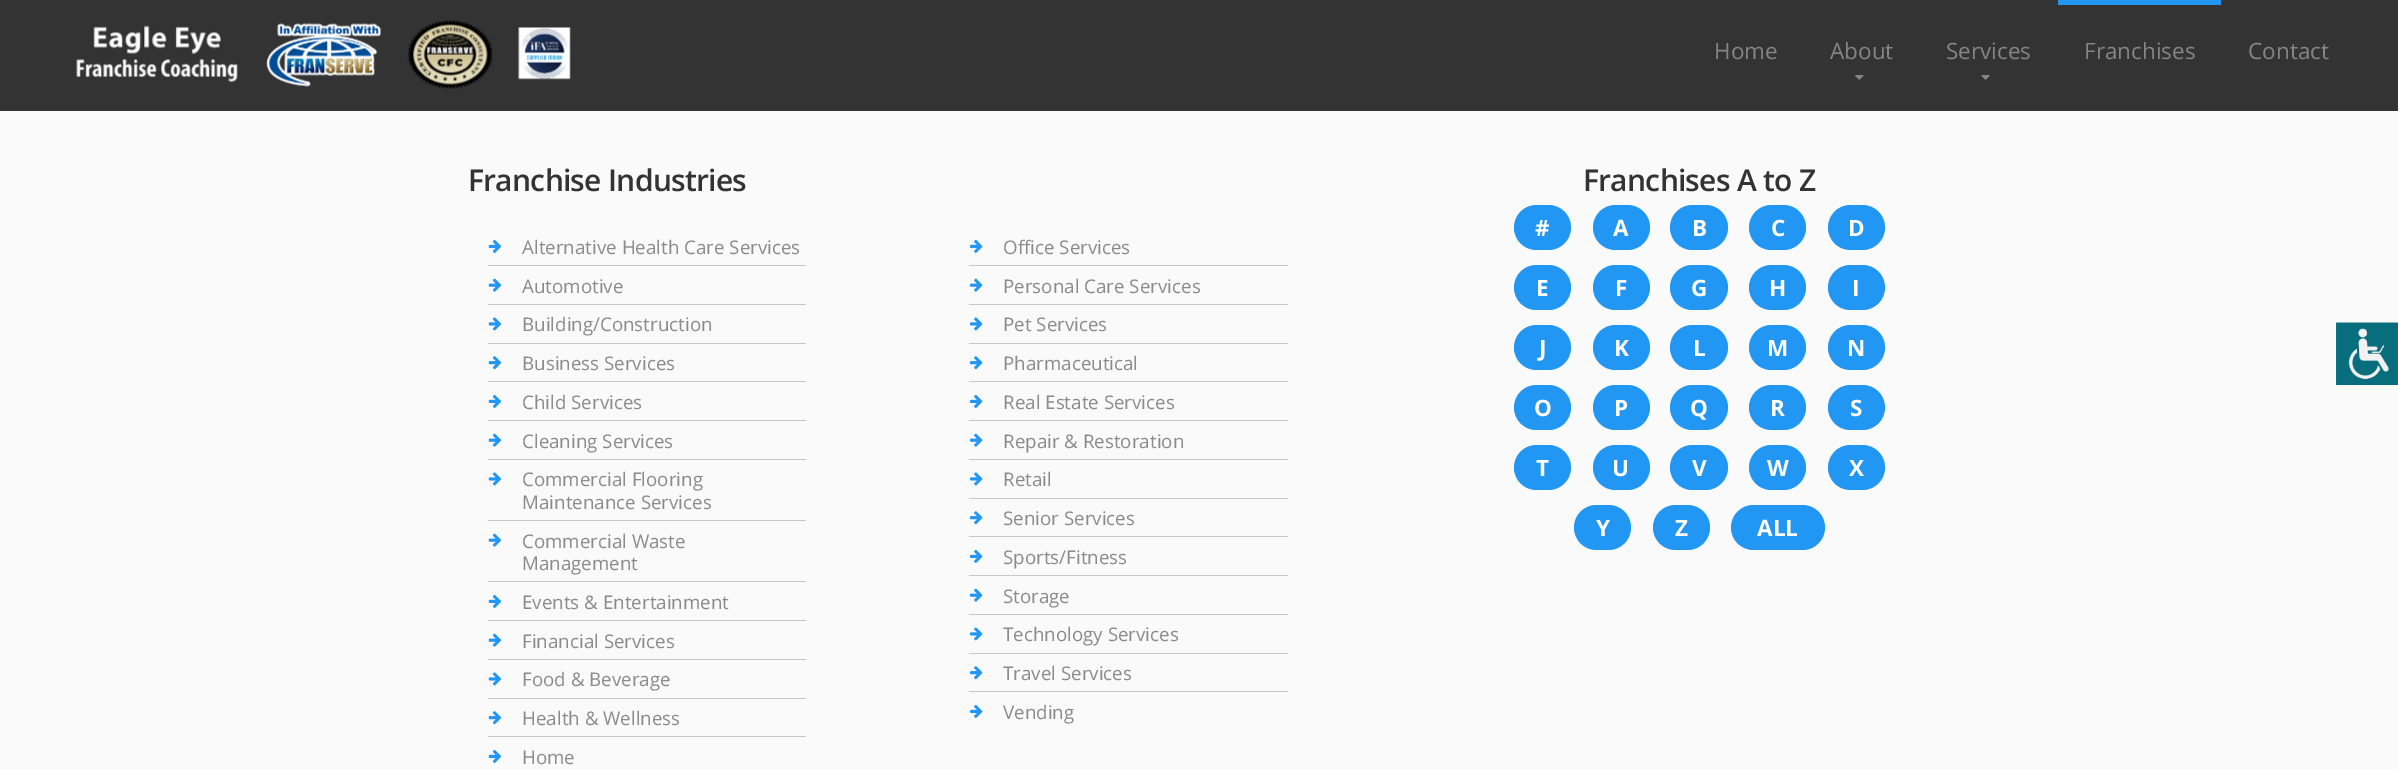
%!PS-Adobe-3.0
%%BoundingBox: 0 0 2398 769
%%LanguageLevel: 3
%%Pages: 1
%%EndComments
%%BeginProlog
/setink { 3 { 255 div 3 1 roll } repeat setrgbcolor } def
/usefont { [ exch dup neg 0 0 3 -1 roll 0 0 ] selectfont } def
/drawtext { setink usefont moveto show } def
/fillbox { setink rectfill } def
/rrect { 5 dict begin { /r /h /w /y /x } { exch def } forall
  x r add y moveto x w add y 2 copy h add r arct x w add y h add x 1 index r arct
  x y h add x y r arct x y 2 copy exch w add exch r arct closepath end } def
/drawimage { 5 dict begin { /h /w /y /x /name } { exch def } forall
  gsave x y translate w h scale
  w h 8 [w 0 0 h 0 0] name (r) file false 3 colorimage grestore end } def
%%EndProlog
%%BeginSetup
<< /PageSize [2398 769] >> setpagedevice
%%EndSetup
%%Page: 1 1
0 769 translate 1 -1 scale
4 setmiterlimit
0 0 2398 769 250 250 250 fillbox
0 0 2398 111 51 51 51 fillbox
(assets/img1.rgb) 76 25 162 57 drawimage
(assets/img2.rgb) 266 23 116 64 drawimage
(assets/img3.rgb) 407 20 86 69 drawimage
(assets/img4.rgb) 518 27 53 53 drawimage
(Home) 1714 59 /OpenSans-Regular 22.5 133 133 133 drawtext
(About) 1830 59 /OpenSans-Regular 22.5 133 133 133 drawtext
(assets/img5.rgb) 1855 75 9 5 drawimage
(Services) 1946 59 /OpenSans-Regular 22.5 133 133 133 drawtext
(assets/img6.rgb) 1981 75 9 5 drawimage
2058 0 163 5 33 150 243 fillbox
(Franchises) 2084 59 /OpenSans-Regular 22.5 133 133 133 drawtext
(Contact) 2248 59 /OpenSans-Regular 22.5 133 133 133 drawtext
/OpenSans-SemiBold 30 usefont
51 51 51 setink
468 191 moveto -0.75 0 (Franchise Industries) ashow
(assets/img7.rgb) 488 239 14 14 drawimage
(Alternative Health Care Services) 522 254 /OpenSans-Regular 18.75 139 139 139 drawtext
488 265 318 1 199 199 199 fillbox
(assets/img8.rgb) 488 278 14 14 drawimage
(Automotive) 522 293 /OpenSans-Regular 18.75 139 139 139 drawtext
488 304 318 1 199 199 199 fillbox
(assets/img9.rgb) 488 317 13 14 drawimage
(Building/Construction) 522 331 /OpenSans-Regular 18.75 139 139 139 drawtext
488 343 318 1 199 199 199 fillbox
(assets/img10.rgb) 488 356 14 14 drawimage
(Business Services) 522 370 /OpenSans-Regular 18.75 139 139 139 drawtext
488 381 318 1 199 199 199 fillbox
(assets/img7.rgb) 488 394 14 14 drawimage
(Child Services) 522 409 /OpenSans-Regular 18.75 139 139 139 drawtext
488 420 318 1 199 199 199 fillbox
(assets/img8.rgb) 488 433 14 14 drawimage
(Cleaning Services) 522 448 /OpenSans-Regular 18.75 139 139 139 drawtext
488 459 318 1 199 199 199 fillbox
(assets/img9.rgb) 488 472 13 14 drawimage
(Commercial Flooring) 522 486 /OpenSans-Regular 18.75 139 139 139 drawtext
(Maintenance Services) 522 509 /OpenSans-Regular 18.75 139 139 139 drawtext
488 520 318 1 199 199 199 fillbox
(assets/img8.rgb) 488 533 14 14 drawimage
(Commercial Waste) 522 548 /OpenSans-Regular 18.75 139 139 139 drawtext
(Management) 522 570 /OpenSans-Regular 18.75 139 139 139 drawtext
488 581 318 1 199 199 199 fillbox
(assets/img7.rgb) 488 594 14 14 drawimage
(Events & Entertainment) 522 609 /OpenSans-Regular 18.75 139 139 139 drawtext
488 620 318 1 199 199 199 fillbox
(assets/img8.rgb) 488 633 14 14 drawimage
(Financial Services) 522 648 /OpenSans-Regular 18.75 139 139 139 drawtext
488 659 318 1 199 199 199 fillbox
(assets/img9.rgb) 488 672 13 14 drawimage
(Food & Beverage) 522 686 /OpenSans-Regular 18.75 139 139 139 drawtext
488 698 318 1 199 199 199 fillbox
(assets/img10.rgb) 488 711 14 14 drawimage
(Health & Wellness) 522 725 /OpenSans-Regular 18.75 139 139 139 drawtext
488 736 318 1 199 199 199 fillbox
(assets/img7.rgb) 488 749 14 14 drawimage
(Home) 522 764 /OpenSans-Regular 18.75 139 139 139 drawtext
(assets/img11.rgb) 970 239 13 14 drawimage
(Office Services) 1003 254 /OpenSans-Regular 18.75 139 139 139 drawtext
969 265 319 1 199 199 199 fillbox
(assets/img12.rgb) 970 278 13 14 drawimage
(Personal Care Services) 1003 293 /OpenSans-Regular 18.75 139 139 139 drawtext
969 304 319 1 199 199 199 fillbox
(assets/img13.rgb) 970 317 13 14 drawimage
(Pet Services) 1003 331 /OpenSans-Regular 18.75 139 139 139 drawtext
969 343 319 1 199 199 199 fillbox
(assets/img14.rgb) 970 356 13 14 drawimage
(Pharmaceutical) 1003 370 /OpenSans-Regular 18.75 139 139 139 drawtext
969 381 319 1 199 199 199 fillbox
(assets/img11.rgb) 970 394 13 14 drawimage
(Real Estate Services) 1003 409 /OpenSans-Regular 18.75 139 139 139 drawtext
969 420 319 1 199 199 199 fillbox
(assets/img12.rgb) 970 433 13 14 drawimage
(Repair & Restoration) 1003 448 /OpenSans-Regular 18.75 139 139 139 drawtext
969 459 319 1 199 199 199 fillbox
(assets/img13.rgb) 970 472 13 14 drawimage
(Retail) 1003 486 /OpenSans-Regular 18.75 139 139 139 drawtext
969 498 319 1 199 199 199 fillbox
(assets/img14.rgb) 970 511 13 14 drawimage
(Senior Services) 1003 525 /OpenSans-Regular 18.75 139 139 139 drawtext
969 536 319 1 199 199 199 fillbox
(assets/img11.rgb) 970 549 13 14 drawimage
(Sports/Fitness) 1003 564 /OpenSans-Regular 18.75 139 139 139 drawtext
969 575 319 1 199 199 199 fillbox
(assets/img12.rgb) 970 588 13 14 drawimage
(Storage) 1003 603 /OpenSans-Regular 18.75 139 139 139 drawtext
969 614 319 1 199 199 199 fillbox
(assets/img13.rgb) 970 627 13 14 drawimage
(Technology Services) 1003 641 /OpenSans-Regular 18.75 139 139 139 drawtext
969 653 319 1 199 199 199 fillbox
(assets/img14.rgb) 970 666 13 14 drawimage
(Travel Services) 1003 680 /OpenSans-Regular 18.75 139 139 139 drawtext
969 691 319 1 199 199 199 fillbox
(assets/img11.rgb) 970 704 13 14 drawimage
(Vending) 1003 719 /OpenSans-Regular 18.75 139 139 139 drawtext
/OpenSans-SemiBold 30 usefont
51 51 51 setink
1583 191 moveto -0.75 0 (Franchises A to Z) ashow
33 150 243 setink
1514 205 57 45 22.5 rrect fill
(#) 1535 236 /OpenSans-Bold 22.5 255 255 255 drawtext
33 150 243 setink
1593 205 57 45 22.5 rrect fill
(A) 1613 236 /OpenSans-Bold 22.5 255 255 255 drawtext
33 150 243 setink
1670 205 58 45 22.5 rrect fill
(B) 1692 236 /OpenSans-Bold 22.5 255 255 255 drawtext
33 150 243 setink
1749 205 57 45 22.5 rrect fill
(C) 1771 236 /OpenSans-Bold 22.5 255 255 255 drawtext
33 150 243 setink
1828 205 57 45 22.5 rrect fill
(D) 1848 236 /OpenSans-Bold 22.5 255 255 255 drawtext
33 150 243 setink
1514 265 57 45 22.5 rrect fill
(E) 1536 296 /OpenSans-Bold 22.5 255 255 255 drawtext
33 150 243 setink
1593 265 57 45 22.5 rrect fill
(F) 1615 296 /OpenSans-Bold 22.5 255 255 255 drawtext
33 150 243 setink
1670 265 58 45 22.5 rrect fill
(G) 1691 296 /OpenSans-Bold 22.5 255 255 255 drawtext
33 150 243 setink
1749 265 57 45 22.5 rrect fill
(H) 1769 296 /OpenSans-Bold 22.5 255 255 255 drawtext
33 150 243 setink
1828 265 57 45 22.5 rrect fill
(I) 1852 296 /OpenSans-Bold 22.5 255 255 255 drawtext
33 150 243 setink
1514 325 57 45 22.5 rrect fill
(J) 1539 356 /OpenSans-Bold 22.5 255 255 255 drawtext
33 150 243 setink
1593 325 57 45 22.5 rrect fill
(K) 1614 356 /OpenSans-Bold 22.5 255 255 255 drawtext
33 150 243 setink
1670 325 58 45 22.5 rrect fill
(L) 1693 356 /OpenSans-Bold 22.5 255 255 255 drawtext
33 150 243 setink
1749 325 57 45 22.5 rrect fill
(M) 1767 356 /OpenSans-Bold 22.5 255 255 255 drawtext
33 150 243 setink
1828 325 57 45 22.5 rrect fill
(N) 1847 356 /OpenSans-Bold 22.5 255 255 255 drawtext
33 150 243 setink
1514 385 57 45 22.5 rrect fill
(O) 1534 416 /OpenSans-Bold 22.5 255 255 255 drawtext
33 150 243 setink
1593 385 57 45 22.5 rrect fill
(P) 1614 416 /OpenSans-Bold 22.5 255 255 255 drawtext
33 150 243 setink
1670 385 58 45 22.5 rrect fill
(Q) 1690 416 /OpenSans-Bold 22.5 255 255 255 drawtext
33 150 243 setink
1749 385 57 45 22.5 rrect fill
(R) 1770 416 /OpenSans-Bold 22.5 255 255 255 drawtext
33 150 243 setink
1828 385 57 45 22.5 rrect fill
(S) 1850 416 /OpenSans-Bold 22.5 255 255 255 drawtext
33 150 243 setink
1514 445 57 45 22.5 rrect fill
(T) 1536 476 /OpenSans-Bold 22.5 255 255 255 drawtext
33 150 243 setink
1593 445 57 45 22.5 rrect fill
(U) 1612 476 /OpenSans-Bold 22.5 255 255 255 drawtext
33 150 243 setink
1670 445 58 45 22.5 rrect fill
(V) 1692 476 /OpenSans-Bold 22.5 255 255 255 drawtext
33 150 243 setink
1749 445 57 45 22.5 rrect fill
(W) 1767 476 /OpenSans-Bold 22.5 255 255 255 drawtext
33 150 243 setink
1828 445 57 45 22.5 rrect fill
(X) 1849 476 /OpenSans-Bold 22.5 255 255 255 drawtext
33 150 243 setink
1574 505 57 45 22.5 rrect fill
(Y) 1596 536 /OpenSans-Bold 22.5 255 255 255 drawtext
33 150 243 setink
1653 505 57 45 22.5 rrect fill
(Z) 1675 536 /OpenSans-Bold 22.5 255 255 255 drawtext
33 150 243 setink
1731 505 94 45 22.5 rrect fill
(ALL) 1757 536 /OpenSans-Bold 22.5 255 255 255 drawtext
(assets/img15.rgb) 2336 322 62 63 drawimage
showpage
%%EOF
